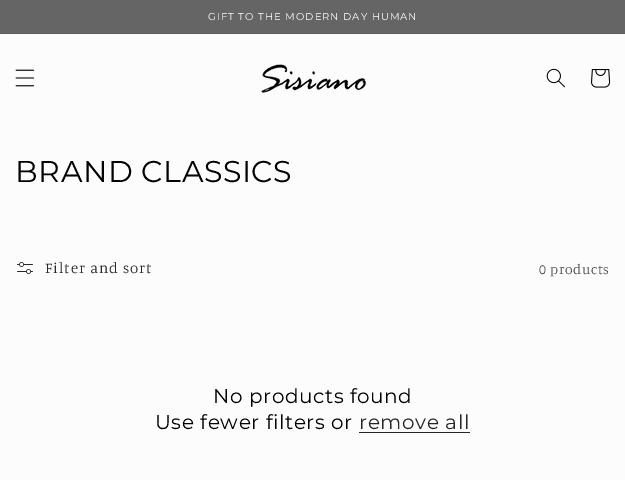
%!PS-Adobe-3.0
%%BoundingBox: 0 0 625 480
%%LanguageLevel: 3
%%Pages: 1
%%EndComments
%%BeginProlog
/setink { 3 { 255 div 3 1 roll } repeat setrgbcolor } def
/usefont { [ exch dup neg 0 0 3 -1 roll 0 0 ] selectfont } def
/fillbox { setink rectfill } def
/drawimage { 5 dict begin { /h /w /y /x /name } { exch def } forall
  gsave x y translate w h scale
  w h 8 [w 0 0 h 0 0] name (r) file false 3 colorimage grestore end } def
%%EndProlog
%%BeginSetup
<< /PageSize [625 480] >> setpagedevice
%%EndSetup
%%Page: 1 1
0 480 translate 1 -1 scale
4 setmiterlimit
0 0 625 480 252 252 252 fillbox
0 0 625 33 101 101 101 fillbox
0 33 625 1 93 93 93 fillbox
/Montserrat-Regular 10 usefont
255 255 255 setink
208 20 moveto 1 0 (GIFT TO THE MODERN DAY HUMAN) ashow
(assets/img1.rgb) 15 69 20 18 drawimage
(assets/img2.rgb) 261 64 105 29 drawimage
(assets/img3.rgb) 546 68 19 20 drawimage
(assets/img4.rgb) 591 69 20 19 drawimage
/Montserrat-Regular 30 usefont
0 0 0 setink
15 182 moveto 0.6 0 (BRAND CLASSICS) ashow
(assets/img5.rgb) 17 262 16 12 drawimage
/Manuale-Light 15 usefont
38 38 38 setink
45 273 moveto 1 0 (Filter and sort) ashow
/Manuale-Light 14 usefont
76 76 76 setink
539 274 moveto 0.6 0 (0 products) ashow
/Montserrat-Regular 20 usefont
0 0 0 setink
213 403 moveto 0.6 0 (No products found) ashow
155 429 moveto 0.6 0 (Use fewer filters or) ashow
38 38 38 setink
359 429 moveto 0.6 0 (remove all) ashow
359 432 111 1 38 38 38 fillbox
showpage
%%EOF
